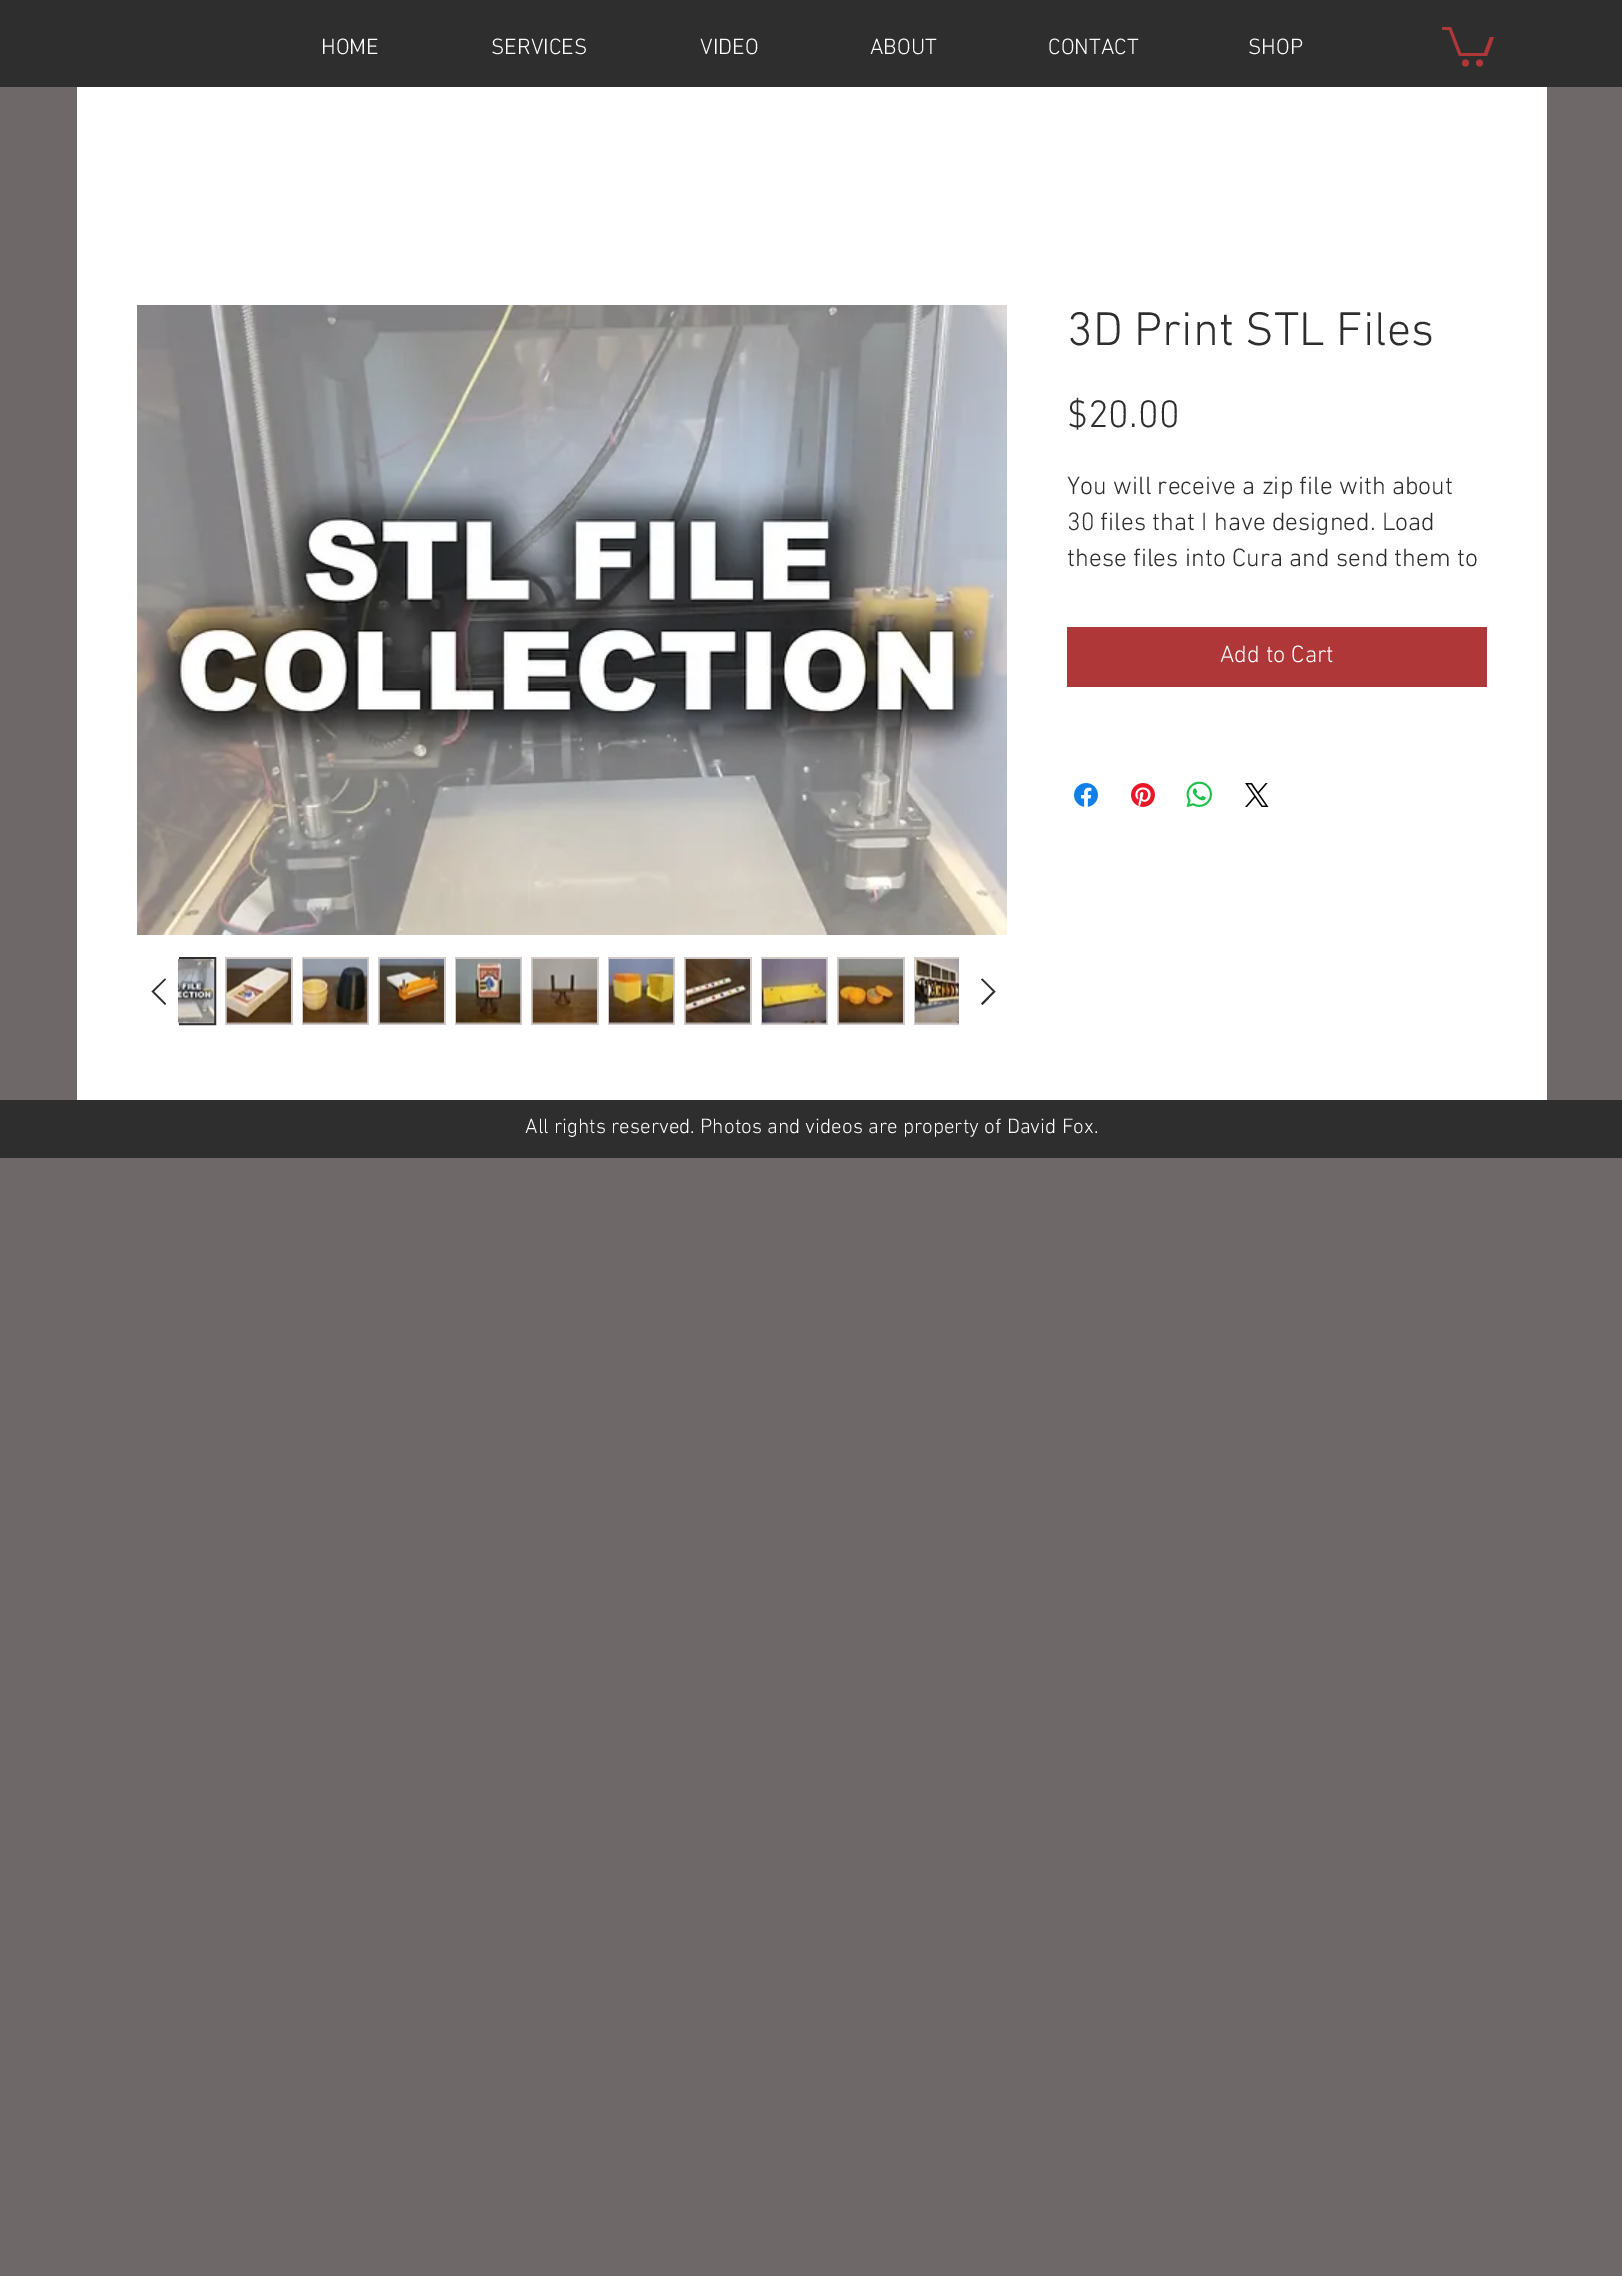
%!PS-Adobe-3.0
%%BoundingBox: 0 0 1622 2276
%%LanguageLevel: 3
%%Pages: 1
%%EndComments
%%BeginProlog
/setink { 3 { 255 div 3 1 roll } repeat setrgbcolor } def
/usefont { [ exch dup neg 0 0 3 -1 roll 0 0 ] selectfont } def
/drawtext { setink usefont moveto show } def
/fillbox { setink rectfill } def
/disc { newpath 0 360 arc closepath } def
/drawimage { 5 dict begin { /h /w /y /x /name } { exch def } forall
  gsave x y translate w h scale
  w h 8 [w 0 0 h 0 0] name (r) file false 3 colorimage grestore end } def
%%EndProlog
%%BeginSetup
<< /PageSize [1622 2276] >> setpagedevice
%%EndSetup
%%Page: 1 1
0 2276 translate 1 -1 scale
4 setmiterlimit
0 0 1622 2276 110 105 104 fillbox
0 0 1622 87 47 46 46 fillbox
(HOME) 321 54 /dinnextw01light-Light 22.5 255 255 255 drawtext
(SERVICES) 491 54 /dinnextw01light-Light 22.5 255 255 255 drawtext
(VIDEO) 700 54 /dinnextw01light-Light 22.5 255 255 255 drawtext
(ABOUT) 870 54 /dinnextw01light-Light 22.5 255 255 255 drawtext
(CONTACT) 1048 54 /dinnextw01light-Light 22.5 255 255 255 drawtext
(SHOP) 1248 54 /dinnextw01light-Light 22.5 255 255 255 drawtext
176 55 55 setink
1494 37 moveto 1487 56 lineto 1459 56 lineto 1449 30 lineto 1442 30 lineto 1442 27 lineto 1451 27 lineto 1461 53 lineto 1484 53 lineto 1490 37 lineto fill
1479.5 63 3.5 disc fill
1465.5 63 3.5 disc fill
77 87 1470 1013 255 255 255 fillbox
(assets/img1.rgb) 137 305 870 630 drawimage
179 1022 35 1 209 202 201 fillbox
47 46 46 setink
165 978.5 moveto 166 979.5 lineto 154 991.5 lineto 166 1003.5 lineto 165 1005 lineto 151.5 991.5 lineto closepath eofill
gsave
179 951 780 80 rectclip
2 setlinewidth
150 958 65 66 rectstroke
grestore
(assets/img2.rgb) 178 959 37 65 drawimage
225 957 68 68 209 202 201 fillbox
(assets/img3.rgb) 226 959 65 65 drawimage
302 957 67 68 209 202 201 fillbox
(assets/img4.rgb) 303 959 65 65 drawimage
378 957 68 68 209 202 201 fillbox
(assets/img5.rgb) 379 959 65 65 drawimage
455 957 67 68 209 202 201 fillbox
(assets/img6.rgb) 456 959 65 65 drawimage
531 957 68 68 209 202 201 fillbox
(assets/img7.rgb) 532 959 65 65 drawimage
608 957 67 68 209 202 201 fillbox
(assets/img8.rgb) 609 959 65 65 drawimage
684 957 68 68 209 202 201 fillbox
(assets/img9.rgb) 685 959 65 65 drawimage
761 957 67 68 209 202 201 fillbox
(assets/img10.rgb) 762 959 65 65 drawimage
837 957 68 68 209 202 201 fillbox
(assets/img11.rgb) 838 959 65 65 drawimage
914 957 45 68 209 202 201 fillbox
(assets/img12.rgb) 915 959 44 65 drawimage
47 46 46 setink
982.5 978.5 moveto 995.5 991.5 lineto 982.5 1005 lineto 981 1003.5 lineto 993 991.5 lineto 981 979.5 lineto closepath eofill
(3D Print STL Files) 1067 345 /dinnextw01light-Light 48 47 46 46 drawtext
($20.00) 1067 427 /dinnextw01light-Light 39 47 46 46 drawtext
(You will receive a zip file with about) 1067 494 /dinnextw01light-Light 25.5 47 46 46 drawtext
(30 files that I have designed. Load) 1067 530 /dinnextw01light-Light 25.5 47 46 46 drawtext
(these files into Cura and send them to) 1067 566 /dinnextw01light-Light 25.5 47 46 46 drawtext
1067 627 420 60 176 55 55 fillbox
(Add to Cart) 1220 662 /dinnextw01light-Light 24 255 255 255 drawtext
(assets/img13.rgb) 1074 783 24 24 drawimage
(assets/img14.rgb) 1131 783 24 24 drawimage
(assets/img15.rgb) 1186 781 26 27 drawimage
(assets/img16.rgb) 1245 783 24 24 drawimage
0 1100 1622 58 47 46 46 fillbox
(All rights reserved. Photos and videos are property of David Fox.) 525 1133 /dinnextw01light-Light 21 255 255 255 drawtext
showpage
%%EOF
